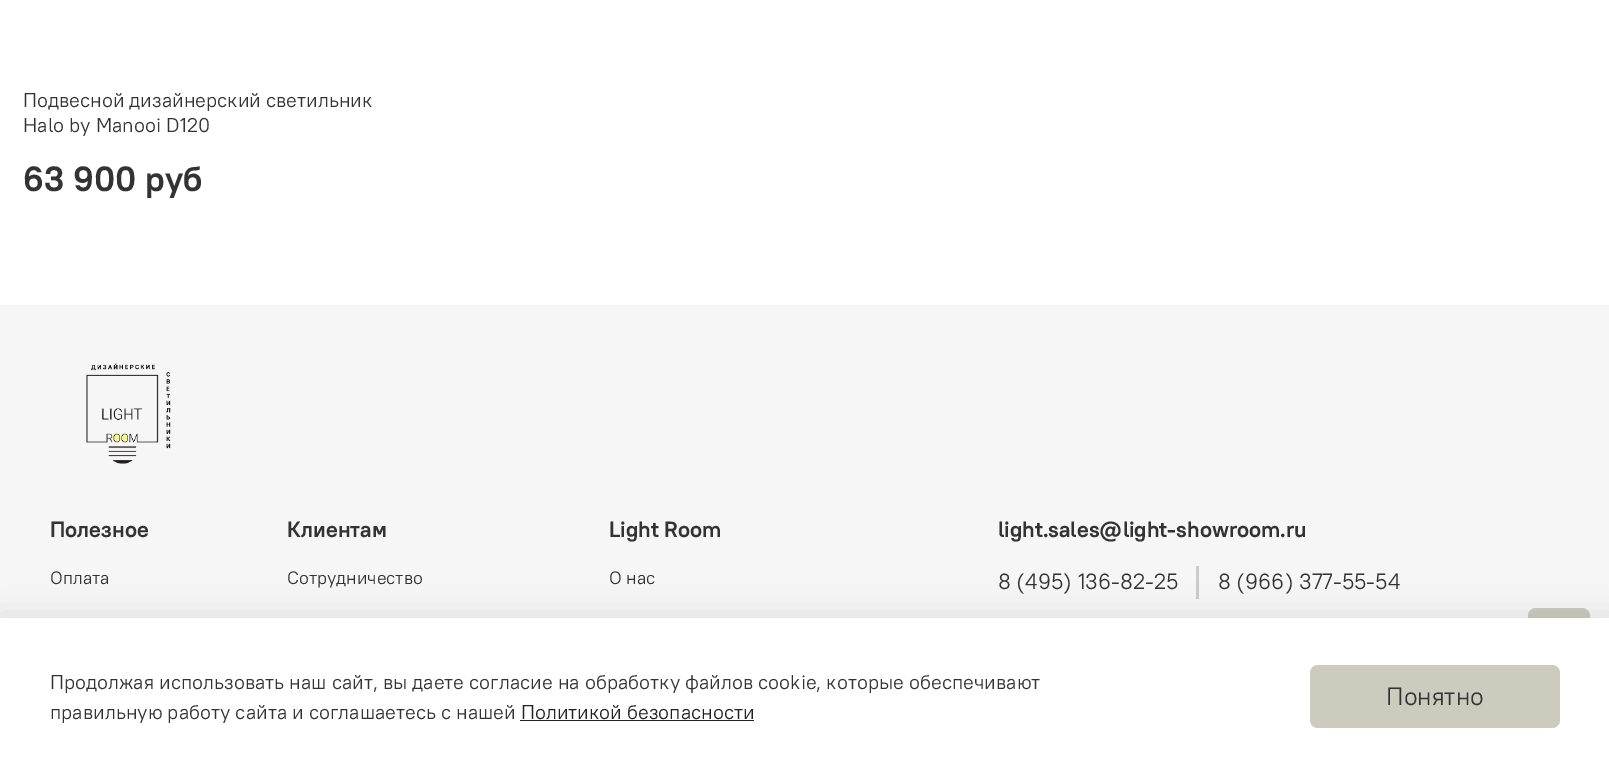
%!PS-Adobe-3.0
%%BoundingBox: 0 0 1609 759
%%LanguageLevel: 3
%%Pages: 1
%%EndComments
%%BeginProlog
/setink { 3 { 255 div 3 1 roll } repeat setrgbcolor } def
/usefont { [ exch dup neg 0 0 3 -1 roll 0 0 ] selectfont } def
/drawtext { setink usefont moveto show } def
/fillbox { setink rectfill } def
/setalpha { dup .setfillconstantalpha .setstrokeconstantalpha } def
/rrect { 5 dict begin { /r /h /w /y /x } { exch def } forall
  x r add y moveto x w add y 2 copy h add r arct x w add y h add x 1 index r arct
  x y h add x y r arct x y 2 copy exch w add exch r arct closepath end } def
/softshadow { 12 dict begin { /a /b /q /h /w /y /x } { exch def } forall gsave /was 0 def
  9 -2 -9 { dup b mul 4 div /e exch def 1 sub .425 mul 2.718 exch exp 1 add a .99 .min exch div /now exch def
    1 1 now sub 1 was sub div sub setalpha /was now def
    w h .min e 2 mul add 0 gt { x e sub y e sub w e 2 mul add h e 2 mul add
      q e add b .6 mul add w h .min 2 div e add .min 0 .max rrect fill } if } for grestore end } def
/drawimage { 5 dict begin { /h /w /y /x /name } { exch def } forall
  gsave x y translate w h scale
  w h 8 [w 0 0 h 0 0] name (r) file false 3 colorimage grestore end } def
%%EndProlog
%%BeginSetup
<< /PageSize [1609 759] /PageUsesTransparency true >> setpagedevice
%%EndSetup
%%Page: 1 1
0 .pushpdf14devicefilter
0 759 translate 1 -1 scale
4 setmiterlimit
0 0 1609 759 255 255 255 fillbox
(Подвесной дизайнерский светильник) 23 107 /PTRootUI-Regular 20 51 51 51 drawtext
(Halo by Manooi D120) 23 132 /PTRootUI-Regular 20 51 51 51 drawtext
(63 900 руб) 23 191 /PTRootUI-Bold 35 51 51 51 drawtext
0 305 1609 313 246 246 247 fillbox
(assets/img1.rgb) 86 363 85 101 drawimage
(Полезное) 50 537 /PTRootUI-Bold 22 51 51 51 drawtext
(Оплата) 50 584 /PTRootUI-Regular 18 51 51 51 drawtext
(Клиентам) 287 537 /PTRootUI-Bold 22 51 51 51 drawtext
(Сотрудничество) 287 584 /PTRootUI-Regular 18 51 51 51 drawtext
(Light Room) 609 537 /PTRootUI-Bold 22 51 51 51 drawtext
(О нас) 609 584 /PTRootUI-Regular 18 51 51 51 drawtext
(light.sales@light-showroom.ru) 998 537 /PTRootUI-Bold 22 51 51 51 drawtext
1196 566 3 33 204 204 204 fillbox
(8 \(495\) 136-82-25) 998 589 /PTRootUI-Regular 22 51 51 51 drawtext
(8 \(966\) 377-55-54) 1218 589 /PTRootUI-Regular 22 51 51 51 drawtext
203 204 190 setink
1528.5 608.5 61 61 7.5 rrect gsave fill grestore
stroke
0 0 0 setink
-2 614 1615 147 0 14.5 0.09 softshadow
0 618 1609 141 255 255 255 fillbox
(Продолжая использовать наш сайт, вы даете согласие на обработку файлов cookie, которые обеспечивают) 50 689 /PTRootUI-Regular 20 51 51 51 drawtext
(правильную работу сайта и соглашаетесь с нашей) 50 719 /PTRootUI-Regular 20 51 51 51 drawtext
(Политикой безопасности) 521 719 /PTRootUI-Regular 20 32 34 35 drawtext
520 720 234 1 32 34 35 fillbox
203 204 190 setink
1310 665 250 63 8 rrect fill
(Понятно) 1386 705 /PTRootUI-Regular 25 51 51 51 drawtext
.poppdf14devicefilter showpage
%%EOF
